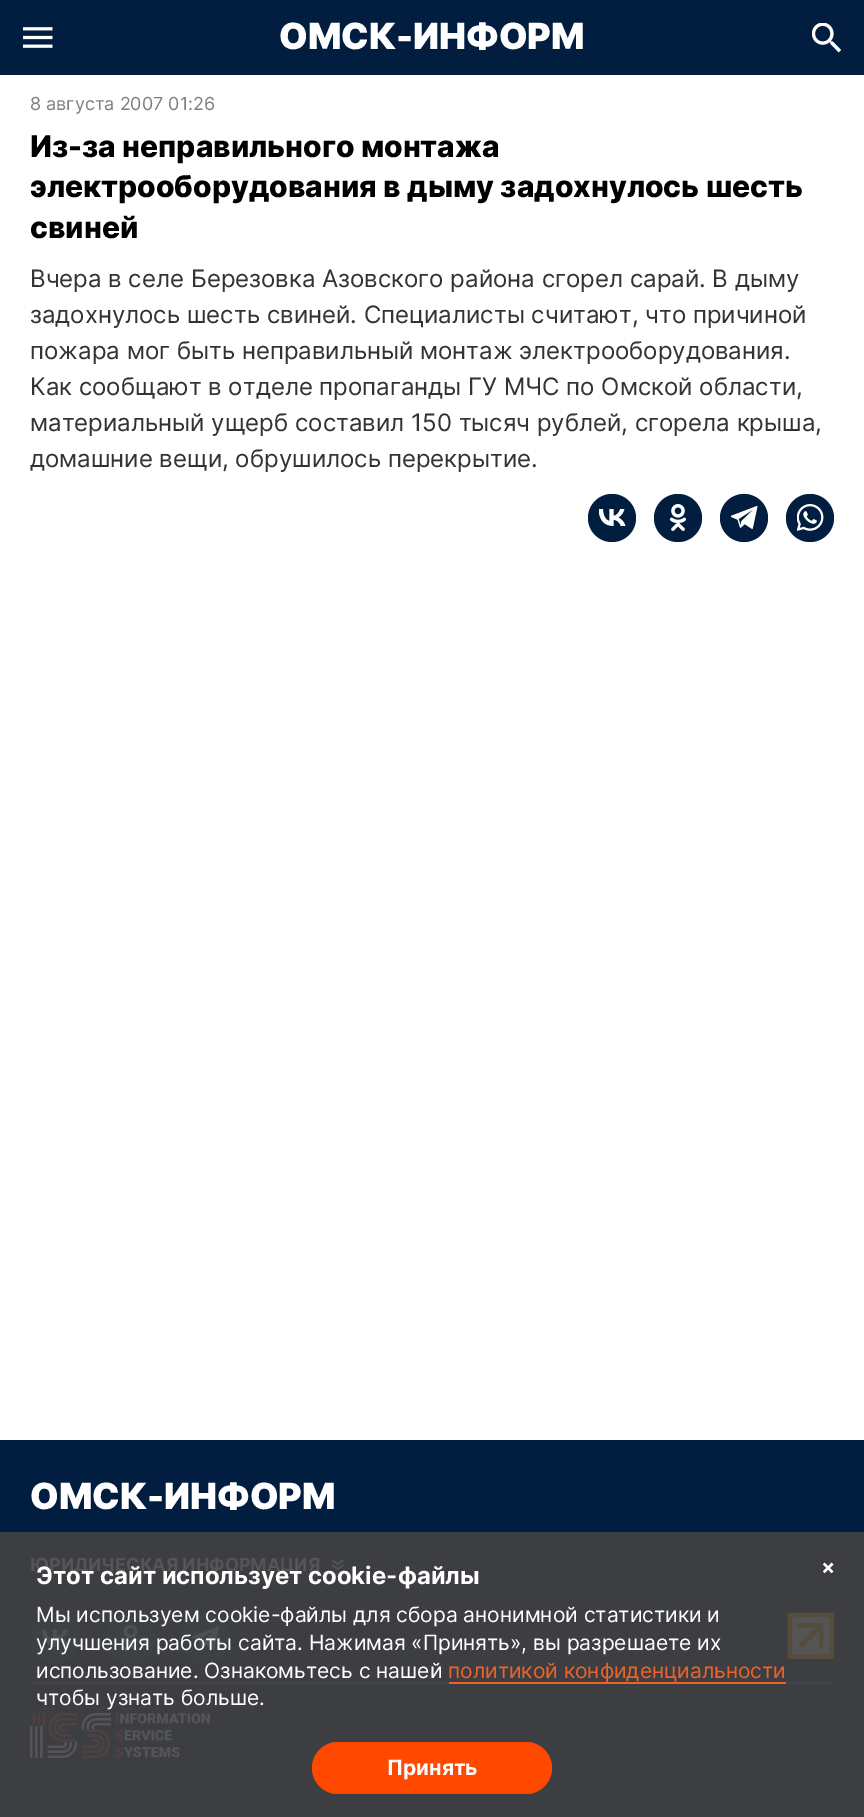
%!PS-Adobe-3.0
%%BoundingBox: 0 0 864 1817
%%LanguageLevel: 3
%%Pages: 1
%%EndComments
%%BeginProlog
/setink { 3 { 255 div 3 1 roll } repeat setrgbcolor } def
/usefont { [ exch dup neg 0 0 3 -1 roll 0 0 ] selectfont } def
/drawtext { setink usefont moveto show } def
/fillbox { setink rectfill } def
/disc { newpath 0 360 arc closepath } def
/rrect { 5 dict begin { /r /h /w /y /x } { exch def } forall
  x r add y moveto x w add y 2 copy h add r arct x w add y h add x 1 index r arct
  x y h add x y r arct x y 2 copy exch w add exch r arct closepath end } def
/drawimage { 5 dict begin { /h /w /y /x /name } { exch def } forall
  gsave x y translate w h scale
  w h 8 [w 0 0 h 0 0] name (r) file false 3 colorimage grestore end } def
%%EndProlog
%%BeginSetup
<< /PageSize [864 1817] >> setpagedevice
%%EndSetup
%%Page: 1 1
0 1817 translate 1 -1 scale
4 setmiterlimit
0 0 864 1817 255 255 255 fillbox
0 0 864 75 1 30 65 fillbox
(assets/img1.rgb) 23 27 30 21 drawimage
(ОМСК-ИНФОРМ) 279 49 /Inter-Black 36 255 255 255 drawtext
(assets/img2.rgb) 812 23 30 30 drawimage
(8 августа 2007 01:26) 30 110 /Inter-Regular 18 128 128 128 drawtext
(Из-за неправильного монтажа) 30 157 /Inter-ExtraBold 30 0 0 0 drawtext
(электрооборудования в дыму задохнулось шесть) 30 197 /Inter-ExtraBold 30 0 0 0 drawtext
(свиней) 30 238 /Inter-ExtraBold 30 0 0 0 drawtext
(Вчера в селе Березовка Азовского района сгорел сарай. В дыму) 30 287 /Inter-Regular 24 51 51 51 drawtext
(задохнулось шесть свиней. Специалисты считают, что причиной) 30 323 /Inter-Regular 24 51 51 51 drawtext
(пожара мог быть неправильный монтаж электрооборудования.) 30 359 /Inter-Regular 24 51 51 51 drawtext
(Как сообщают в отделе пропаганды ГУ МЧС по Омской области,) 30 395 /Inter-Regular 24 51 51 51 drawtext
(материальный ущерб составил 150 тысяч рублей, сгорела крыша,) 30 431 /Inter-Regular 24 51 51 51 drawtext
(домашние вещи, обрушилось перекрытие.) 30 467 /Inter-Regular 24 51 51 51 drawtext
1 30 65 setink
612 518 24 disc fill
(assets/img3.rgb) 599 509 27 17 drawimage
678 518 24 disc fill
(assets/img4.rgb) 669 504 18 27 drawimage
744 518 24 disc fill
(assets/img5.rgb) 731 505 27 24 drawimage
810 518 24 disc fill
(assets/img6.rgb) 797 504 27 27 drawimage
0 1440 864 92 1 30 65 fillbox
0 1532 864 285 60 62 66 fillbox
(ОМСК-ИНФОРМ) 30 1509 /Inter-Black 36 255 255 255 drawtext
(ЮРИДИЧЕСКАЯ ИНФОРМАЦИЯ) 30 1571 /Inter-Bold 18 85 85 85 drawtext
(assets/img7.rgb) 332 1559 12 11 drawimage
62 65 68 setink
55.5 1638.5 25.5 disc fill
(assets/img8.rgb) 42 1629 27 18 drawimage
130.5 1638.5 25.5 disc fill
(assets/img9.rgb) 122 1625 17 27 drawimage
205.5 1638.5 25.5 disc fill
(assets/img10.rgb) 192 1626 27 24 drawimage
(assets/img11.rgb) 787 1612 47 47 drawimage
30 1682 804 2 67 69 72 fillbox
(assets/img12.rgb) 30 1713 180 45 drawimage
(Этот сайт использует cookie-файлы) 36 1584 /Inter-Bold 24 255 255 255 drawtext
(Мы используем cookie-файлы для сбора анонимной статистики и) 36 1622 /Inter-Regular 21 255 255 255 drawtext
(улучшения работы сайта. Нажимая «Принять», вы разрешаете их) 36 1650 /Inter-Regular 21 255 255 255 drawtext
(использование. Ознакомьтесь с нашей) 36 1678 /Inter-Regular 21 255 255 255 drawtext
(политикой конфиденциальности) 448 1678 /Inter-Regular 21 239 99 39 drawtext
449 1682 337 2 239 99 39 fillbox
(чтобы узнать больше.) 36 1705 /Inter-Regular 21 255 255 255 drawtext
255 73 0 setink
312 1742 240 52 26 rrect fill
(Принять) 387 1775 /Inter-Bold 21 255 255 255 drawtext
(×) 821 1574 /Inter-Bold 21 255 255 255 drawtext
showpage
%%EOF
